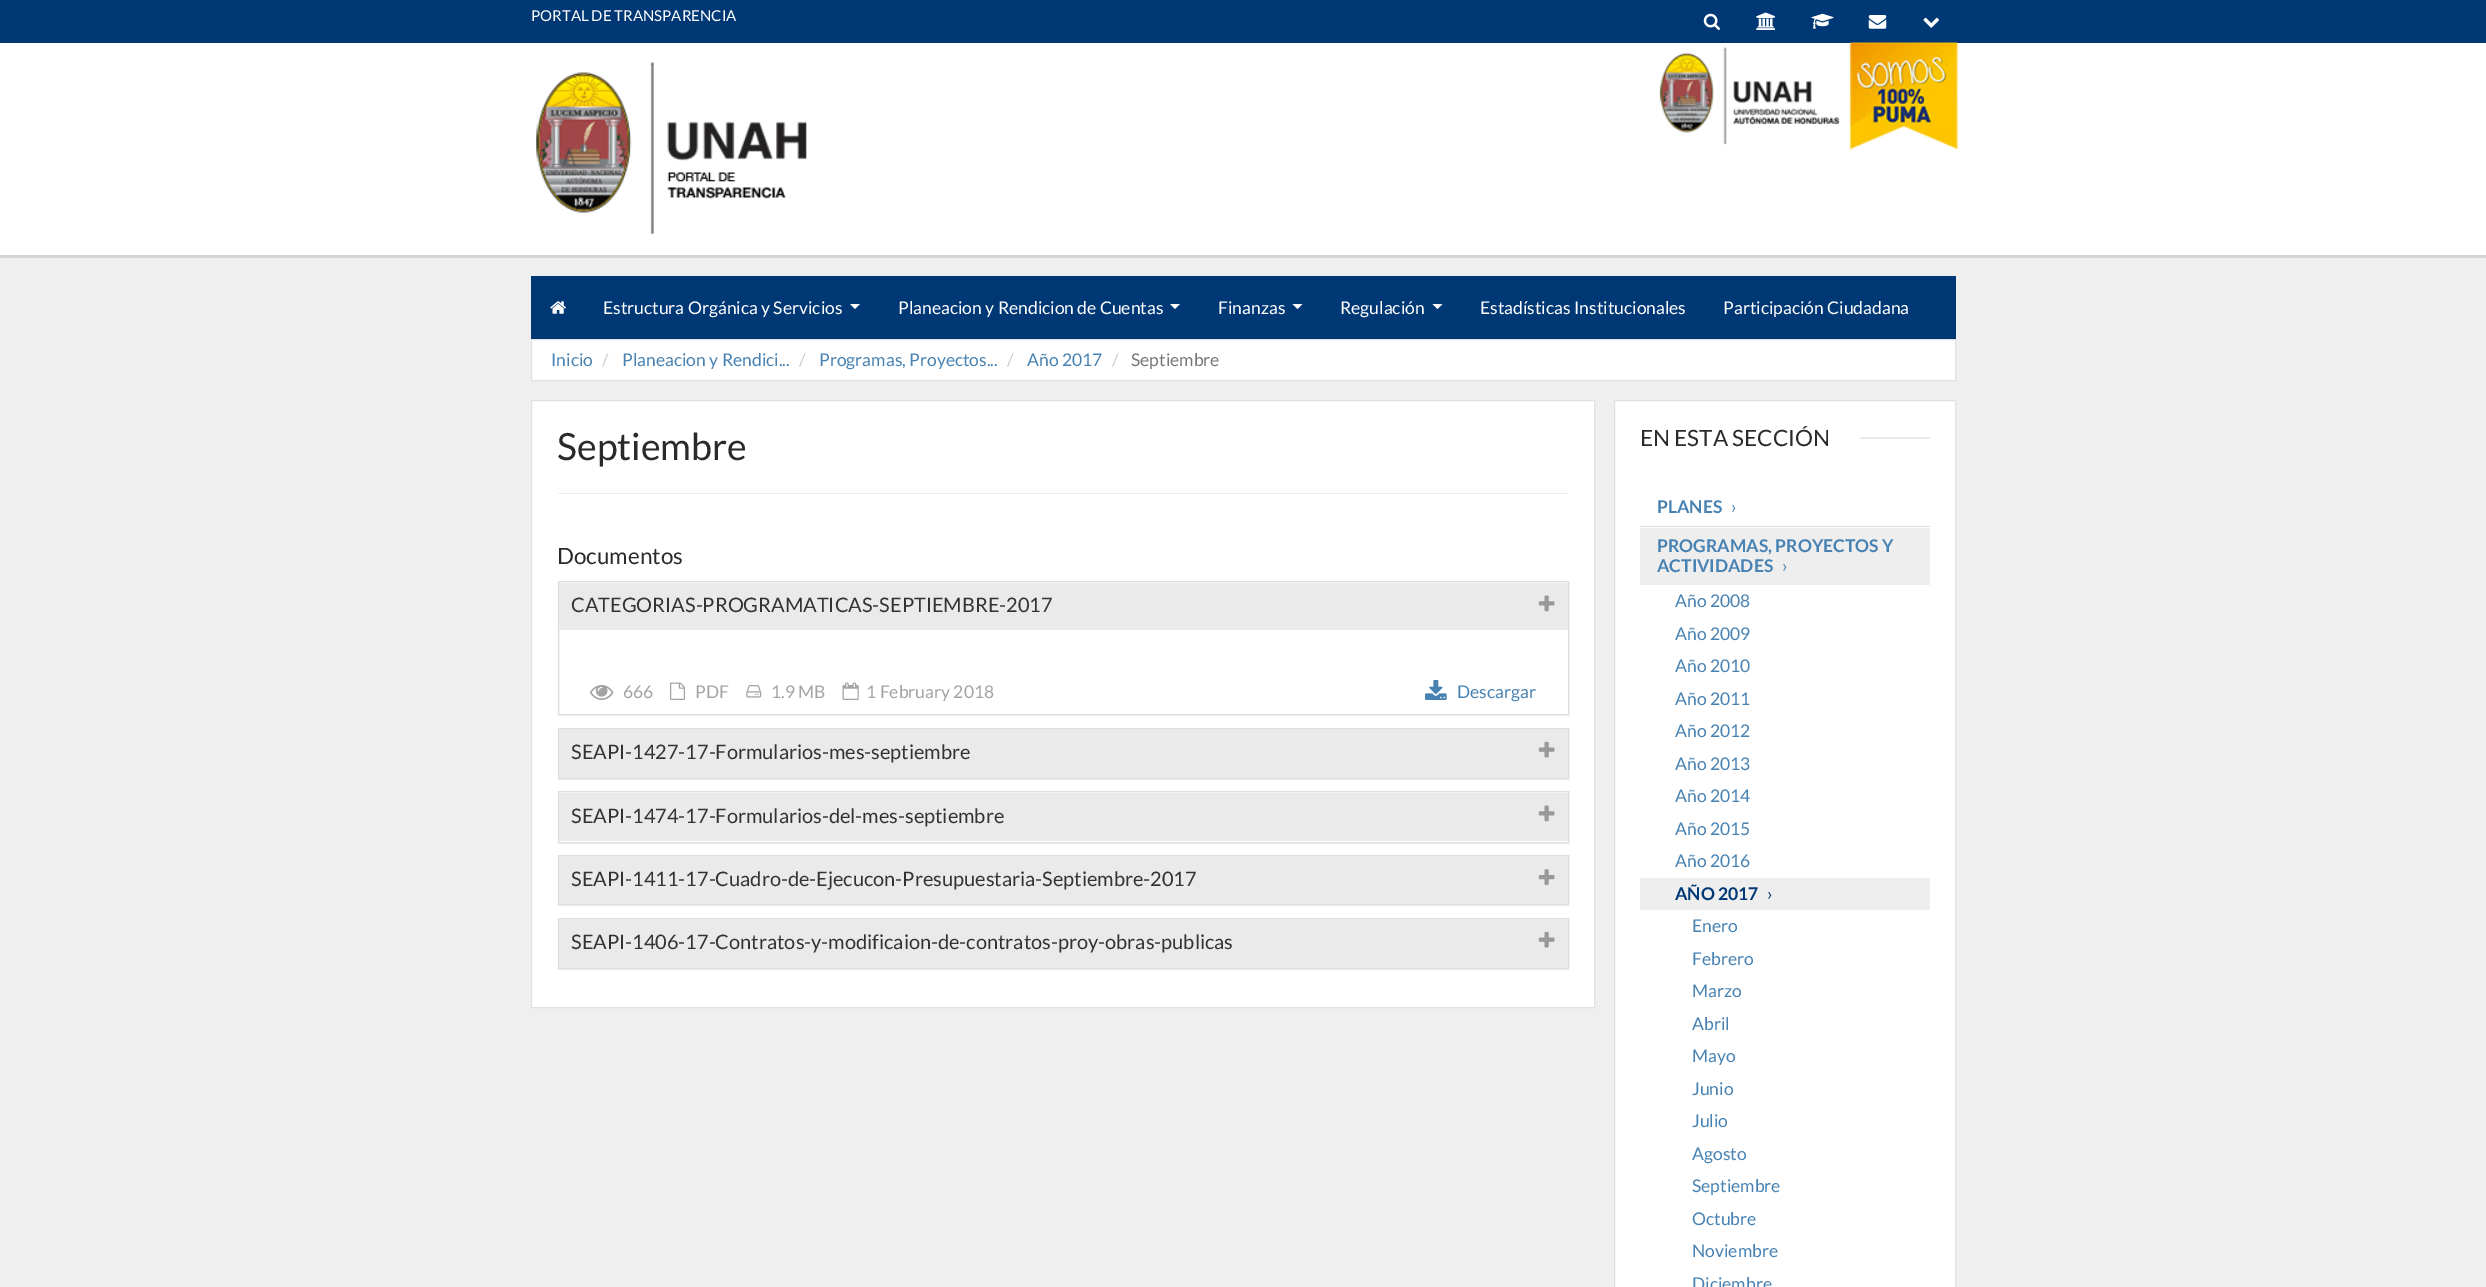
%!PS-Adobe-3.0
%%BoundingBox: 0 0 2486 1287
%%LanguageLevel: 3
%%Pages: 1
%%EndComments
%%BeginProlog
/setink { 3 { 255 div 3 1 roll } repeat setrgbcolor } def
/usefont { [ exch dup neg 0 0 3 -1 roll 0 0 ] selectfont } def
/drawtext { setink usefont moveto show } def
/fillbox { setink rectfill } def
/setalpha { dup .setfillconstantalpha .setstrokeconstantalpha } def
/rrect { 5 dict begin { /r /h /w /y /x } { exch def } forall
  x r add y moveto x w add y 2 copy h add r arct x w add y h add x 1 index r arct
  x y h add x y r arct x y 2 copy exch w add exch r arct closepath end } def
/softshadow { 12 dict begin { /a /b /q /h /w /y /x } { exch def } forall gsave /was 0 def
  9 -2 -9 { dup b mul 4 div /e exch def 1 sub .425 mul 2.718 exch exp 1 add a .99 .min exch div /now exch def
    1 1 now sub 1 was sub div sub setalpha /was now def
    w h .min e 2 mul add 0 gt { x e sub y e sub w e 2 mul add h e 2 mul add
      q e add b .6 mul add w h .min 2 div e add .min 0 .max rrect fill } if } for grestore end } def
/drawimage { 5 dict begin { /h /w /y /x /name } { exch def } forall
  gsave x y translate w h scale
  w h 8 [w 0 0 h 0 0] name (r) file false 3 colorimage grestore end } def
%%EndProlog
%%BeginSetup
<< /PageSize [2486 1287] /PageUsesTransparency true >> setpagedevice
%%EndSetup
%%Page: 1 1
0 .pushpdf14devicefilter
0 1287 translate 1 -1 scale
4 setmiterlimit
0 0 2486 1287 239 239 239 fillbox
0 43 2486 212 255 255 255 fillbox
0 255 2486 3 213 213 213 fillbox
0 0 2486 43 0 56 117 fillbox
(PORTAL DE TRANSPARENCIA) 531 21 /Lato-Regular 15 255 255 255 drawtext
(assets/img1.rgb) 1703 13 17 17 drawimage
(assets/img2.rgb) 1756 12 19 18 drawimage
(assets/img3.rgb) 1811 13 23 16 drawimage
(assets/img4.rgb) 1868 15 19 14 drawimage
(assets/img5.rgb) 1923 17 17 11 drawimage
(assets/img6.rgb) 536 62 271 172 drawimage
(assets/img7.rgb) 1659 42 299 109 drawimage
531 276 1425 63 0 56 117 fillbox
(assets/img8.rgb) 550 301 16 13 drawimage
(Estructura Orgánica y Servicios) 603 314 /Lato-Regular 17.5 255 255 255 drawtext
850 304 moveto 860 304 lineto 855 309 lineto closepath fill
(Planeacion y Rendicion de Cuentas) 898 314 /Lato-Regular 17.5 255 255 255 drawtext
1170 304 moveto 1180 304 lineto 1175 309 lineto closepath fill
(Finanzas) 1218 314 /Lato-Regular 17.5 255 255 255 drawtext
1292.5 304 moveto 1302.5 304 lineto 1297.5 309 lineto closepath fill
(Regulación) 1340 314 /Lato-Regular 17.5 255 255 255 drawtext
1432.5 304 moveto 1442.5 304 lineto 1437.5 309 lineto closepath fill
(Estadísticas Institucionales) 1480 314 /Lato-Regular 17.5 255 255 255 drawtext
(Participación Ciudadana) 1723 314 /Lato-Regular 17.5 255 255 255 drawtext
531.5 339.5 moveto 1955.5 339.5 lineto 1955.5 380.5 lineto 531.5 380.5 lineto closepath gsave fill grestore
225 225 225 setink
stroke
(Inicio) 551 366 /Lato-Regular 17.5 71 130 178 drawtext
(/) 602 366 /Lato-Regular 17.5 204 204 204 drawtext
(Planeacion y Rendici...) 622 366 /Lato-Regular 17.5 71 130 178 drawtext
(/) 799 366 /Lato-Regular 17.5 204 204 204 drawtext
(Programas, Proyectos...) 819 366 /Lato-Regular 17.5 71 130 178 drawtext
(/) 1007 366 /Lato-Regular 17.5 204 204 204 drawtext
(Año 2017) 1027 366 /Lato-Regular 17.5 71 130 178 drawtext
(/) 1112 366 /Lato-Regular 17.5 204 204 204 drawtext
(Septiembre) 1131 366 /Lato-Regular 17.5 119 119 119 drawtext
255 255 255 setink
531.5 400.5 moveto 1594.5 400.5 lineto 1594.5 1007.5 lineto 531.5 1007.5 lineto closepath gsave fill grestore
225 225 225 setink
stroke
(Septiembre) 557 460 /Lato-Regular 37.5 40 42 44 drawtext
558 493 1011 1 238 238 238 fillbox
(Documentos) 557 564 /Lato-Regular 22.5 40 42 44 drawtext
0 0 0 setink
558 583 1011 133 0 0.5 0.05 softshadow
559 583 1009 131 255 255 255 fillbox
221 221 221 setink
558.5 581.5 1010 133 rectstroke
559 583 1009 47 234 234 234 fillbox
(CATEGORIAS-PROGRAMATICAS-SEPTIEMBRE-2017) 571 612 /Lato-Regular 20 51 51 51 drawtext
(assets/img9.rgb) 1538 595 17 17 drawimage
(assets/img10.rgb) 590 685 24 15 drawimage
(666) 623 698 /Lato-Regular 17.5 163 163 163 drawtext
(assets/img11.rgb) 670 682 15 18 drawimage
(PDF) 695 698 /Lato-Regular 17.5 163 163 163 drawtext
(assets/img12.rgb) 746 685 16 13 drawimage
(1.9 MB) 771 698 /Lato-Regular 17.5 163 163 163 drawtext
(assets/img13.rgb) 842 682 17 18 drawimage
(1 February 2018) 866 698 /Lato-Regular 17.5 163 163 163 drawtext
(assets/img14.rgb) 1425 680 22 20 drawimage
(Descargar) 1457 698 /Lato-Regular 17.5 71 130 178 drawtext
0 0 0 setink
558 729 1011 51 0 0.5 0.05 softshadow
221 221 221 setink
558.5 728.5 1010 50 rectstroke
559 729 1009 49 234 234 234 fillbox
(SEAPI-1427-17-Formularios-mes-septiembre) 571 759 /Lato-Regular 20 51 51 51 drawtext
(assets/img15.rgb) 1538 741 17 17 drawimage
0 0 0 setink
558 793 1011 51 0 0.5 0.05 softshadow
559 793 1009 49 255 255 255 fillbox
221 221 221 setink
558.5 791.5 1010 51 rectstroke
559 793 1009 48 234 234 234 fillbox
(SEAPI-1474-17-Formularios-del-mes-septiembre) 571 823 /Lato-Regular 20 51 51 51 drawtext
(assets/img9.rgb) 1538 805 17 17 drawimage
0 0 0 setink
558 856 1011 50 0 0.5 0.05 softshadow
221 221 221 setink
558.5 855.5 1010 49 rectstroke
559 856 1009 48 234 234 234 fillbox
(SEAPI-1411-17-Cuadro-de-Ejecucon-Presupuestaria-Septiembre-2017) 571 886 /Lato-Regular 20 51 51 51 drawtext
(assets/img16.rgb) 1538 869 17 16 drawimage
0 0 0 setink
558 919 1011 51 0 0.5 0.05 softshadow
221 221 221 setink
558.5 918.5 1010 50 rectstroke
559 919 1009 49 234 234 234 fillbox
(SEAPI-1406-17-Contratos-y-modificaion-de-contratos-proy-obras-publicas) 571 949 /Lato-Regular 20 51 51 51 drawtext
(assets/img15.rgb) 1538 931 17 17 drawimage
255 255 255 setink
1614.5 400.5 moveto 1955.5 400.5 lineto 1955.5 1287.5 lineto 1614.5 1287.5 lineto closepath gsave fill grestore
225 225 225 setink
stroke
(assets/img17.rgb) 1860 437 70 2 drawimage
(EN ESTA SECCIÓN) 1640 446 /Lato-Regular 22.5 40 42 44 drawtext
1640 526 290 1 221 221 221 fillbox
(PLANES) 1657 513 /Lato-Bold 17.5 71 130 178 drawtext
(›) 1731 513 /Lato-Regular 17.5 71 130 178 drawtext
1640 528 290 57 238 238 238 fillbox
(PROGRAMAS, PROYECTOS Y) 1657 552 /Lato-Bold 17.5 71 130 178 drawtext
(ACTIVIDADES) 1657 572 /Lato-Bold 17.5 71 130 178 drawtext
(›) 1782 572 /Lato-Regular 17.5 71 130 178 drawtext
(Año 2008) 1675 607 /Lato-Regular 17.5 71 130 178 drawtext
(Año 2009) 1675 640 /Lato-Regular 17.5 71 130 178 drawtext
(Año 2010) 1675 672 /Lato-Regular 17.5 71 130 178 drawtext
(Año 2011) 1675 705 /Lato-Regular 17.5 71 130 178 drawtext
(Año 2012) 1675 737 /Lato-Regular 17.5 71 130 178 drawtext
(Año 2013) 1675 770 /Lato-Regular 17.5 71 130 178 drawtext
(Año 2014) 1675 802 /Lato-Regular 17.5 71 130 178 drawtext
(Año 2015) 1675 835 /Lato-Regular 17.5 71 130 178 drawtext
(Año 2016) 1675 867 /Lato-Regular 17.5 71 130 178 drawtext
1640 878 290 32 238 238 238 fillbox
(AÑO 2017) 1675 900 /Lato-Bold 17.5 0 56 117 drawtext
(›) 1767 900 /Lato-Regular 17.5 0 56 117 drawtext
(Enero) 1692 932 /Lato-Regular 17.5 71 130 178 drawtext
(Febrero) 1692 965 /Lato-Regular 17.5 71 130 178 drawtext
(Marzo) 1692 997 /Lato-Regular 17.5 71 130 178 drawtext
(Abril) 1692 1030 /Lato-Regular 17.5 71 130 178 drawtext
(Mayo) 1692 1062 /Lato-Regular 17.5 71 130 178 drawtext
(Junio) 1692 1095 /Lato-Regular 17.5 71 130 178 drawtext
(Julio) 1692 1127 /Lato-Regular 17.5 71 130 178 drawtext
(Agosto) 1692 1160 /Lato-Regular 17.5 71 130 178 drawtext
(Septiembre) 1692 1192 /Lato-Regular 17.5 71 130 178 drawtext
(Octubre) 1692 1225 /Lato-Regular 17.5 71 130 178 drawtext
(Noviembre) 1692 1257 /Lato-Regular 17.5 71 130 178 drawtext
(Diciembre) 1692 1290 /Lato-Regular 17.5 71 130 178 drawtext
.poppdf14devicefilter showpage
%%EOF
